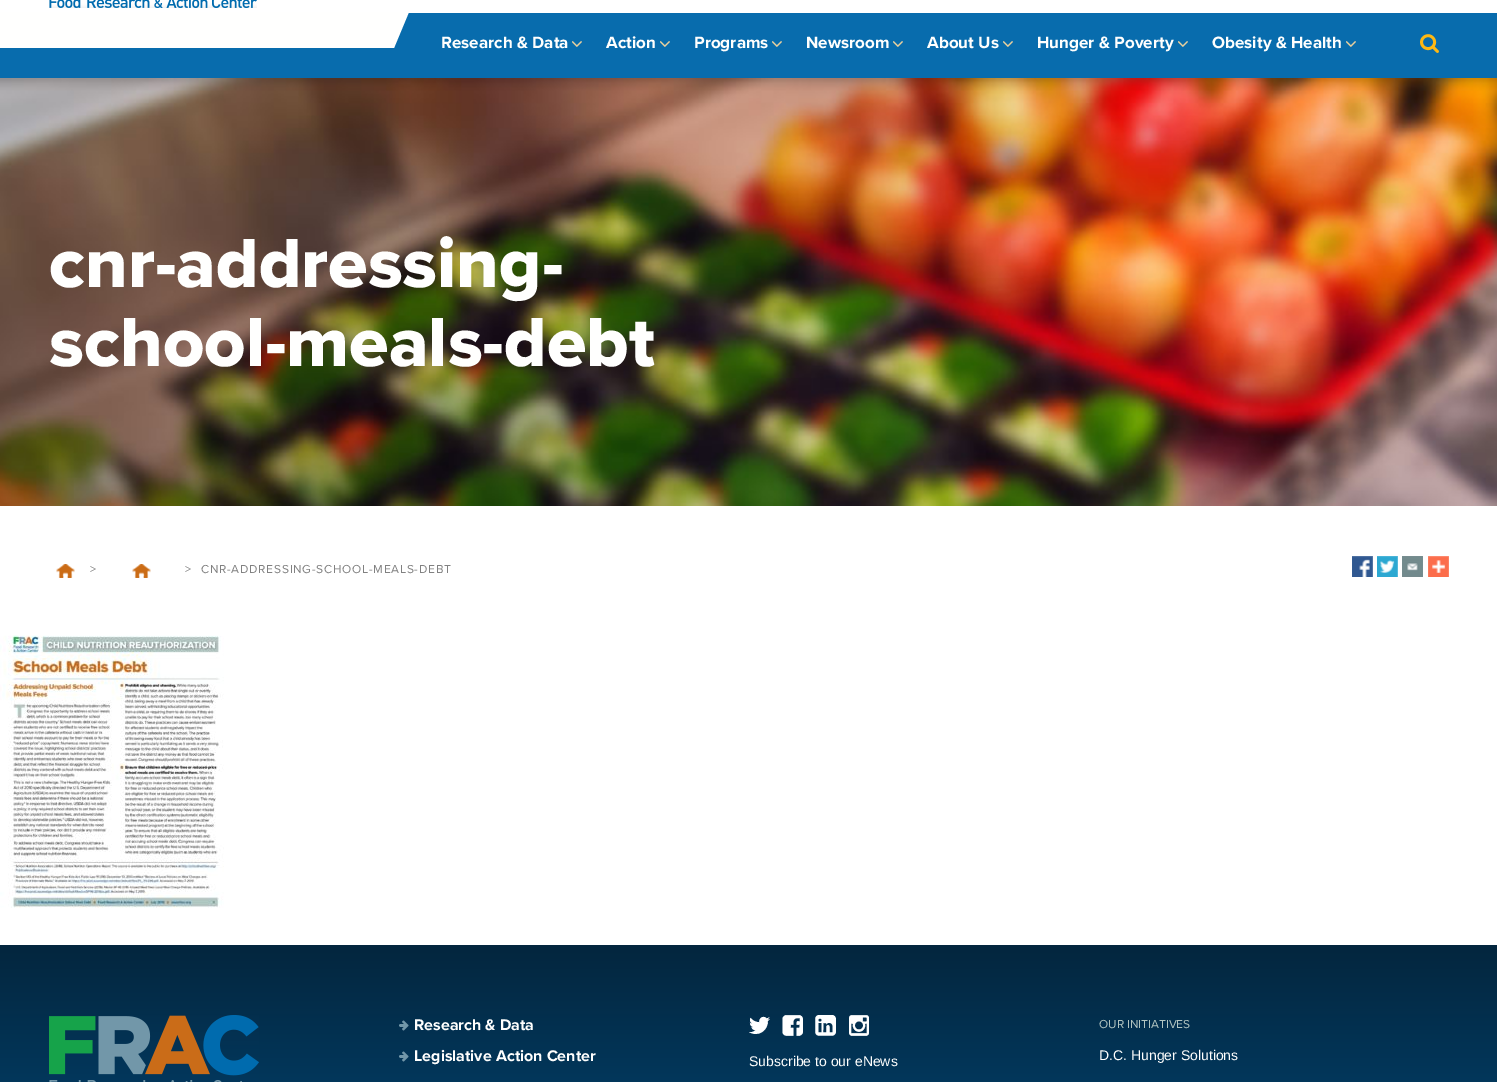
%!PS-Adobe-3.0
%%BoundingBox: 0 0 1497 1082
%%LanguageLevel: 3
%%Pages: 1
%%EndComments
%%BeginProlog
/setink { 3 { 255 div 3 1 roll } repeat setrgbcolor } def
/usefont { [ exch dup neg 0 0 3 -1 roll 0 0 ] selectfont } def
/drawtext { setink usefont moveto show } def
/fillbox { setink rectfill } def
/drawimage { 5 dict begin { /h /w /y /x /name } { exch def } forall
  gsave x y translate w h scale
  w h 8 [w 0 0 h 0 0] name (r) file false 3 colorimage grestore end } def
%%EndProlog
%%BeginSetup
<< /PageSize [1497 1082] >> setpagedevice
%%EndSetup
%%Page: 1 1
0 1082 translate 1 -1 scale
4 setmiterlimit
0 0 1497 1082 255 255 255 fillbox
(assets/img1.rgb) 49 0 208 8 drawimage
0 13 1497 65 8 108 173 fillbox
255 255 254 setink
-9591 12 moveto 409 12 lineto 394 48 lineto -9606 48 lineto closepath fill
(assets/img2.rgb) 572 41 10 6 drawimage
(Research & Data) 441 48 /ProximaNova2-Regular 17 255 255 254 drawtext
(assets/img2.rgb) 660 41 10 6 drawimage
(Action) 606 48 /ProximaNova2-Regular 17 255 255 254 drawtext
(assets/img2.rgb) 772 41 10 6 drawimage
(Programs) 694 48 /ProximaNova2-Regular 17 255 255 254 drawtext
(assets/img2.rgb) 893 41 10 6 drawimage
(Newsroom) 806 48 /ProximaNova2-Regular 17 255 255 254 drawtext
(assets/img2.rgb) 1003 41 10 6 drawimage
(About Us) 927 48 /ProximaNova2-Regular 17 255 255 254 drawtext
(assets/img2.rgb) 1178 41 10 6 drawimage
(Hunger & Poverty) 1037 48 /ProximaNova2-Regular 17 255 255 254 drawtext
(assets/img2.rgb) 1346 41 10 6 drawimage
(Obesity & Health) 1212 48 /ProximaNova2-Regular 17 255 255 254 drawtext
(assets/img3.rgb) 1420 34 19 19 drawimage
(assets/img4.rgb) 0 78 1497 428 drawimage
(cnr-addressing-) 49 287 /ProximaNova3-Regular 72 255 255 254 drawtext
(school-meals-debt) 49 366 /ProximaNova3-Regular 72 255 255 254 drawtext
(assets/img5.rgb) 56 564 19 14 drawimage
/ProximaNova-Regular 12 usefont
129 129 129 setink
90 573 moveto 0.75 0 (>) ashow
(assets/img5.rgb) 132 564 19 14 drawimage
185 573 moveto 0.75 0 (>) ashow
201 573 moveto 0.75 0 (CNR-ADDRESSING-SCHOOL-MEALS-DEBT) ashow
(assets/img6.rgb) 1352 556 21 21 drawimage
(assets/img7.rgb) 1377 556 21 21 drawimage
(assets/img8.rgb) 1402 556 21 21 drawimage
(assets/img9.rgb) 1428 556 21 21 drawimage
(assets/img10.rgb) 0 635 224 273 drawimage
gsave 0 945 moveto 1497 945 lineto 1497 1082 lineto 0 1082 lineto closepath clip newpath
<< /ShadingType 2 /ColorSpace /DeviceRGB /Coords [749 945 749 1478] /Extend [true true] /Function << /FunctionType 3 /Domain [0 1] /Functions [<< /FunctionType 2 /Domain [0 1] /C0 [0.016 0.149 0.243] /C1 [0 0.275 0.467] /N 1 >> << /FunctionType 2 /Domain [0 1] /C0 [0 0.275 0.467] /C1 [0 0.275 0.467] /N 1 >>] /Bounds [0.5] /Encode [0 1 0 1] >> >> shfill grestore
(assets/img11.rgb) 49 1015 210 67 drawimage
(assets/img12.rgb) 399 1020 10 11 drawimage
(Research & Data) 414 1030 /ProximaNova2-Regular 16 255 255 254 drawtext
(assets/img13.rgb) 399 1051 10 11 drawimage
(Legislative Action Center) 414 1061 /ProximaNova2-Regular 16 255 255 254 drawtext
(assets/img14.rgb) 749 1016 21 18 drawimage
(assets/img15.rgb) 782 1015 21 21 drawimage
(assets/img16.rgb) 815 1015 21 21 drawimage
(assets/img17.rgb) 849 1015 20 21 drawimage
(Subscribe to our eNews) 749 1066 /LiberationSans-Regular 14 255 255 254 drawtext
(OUR INITIATIVES) 1099 1028 /ProximaNova-Regular 12 178 197 193 drawtext
(D.C. Hunger Solutions) 1099 1060 /LiberationSans-Regular 14 255 255 254 drawtext
showpage
%%EOF
